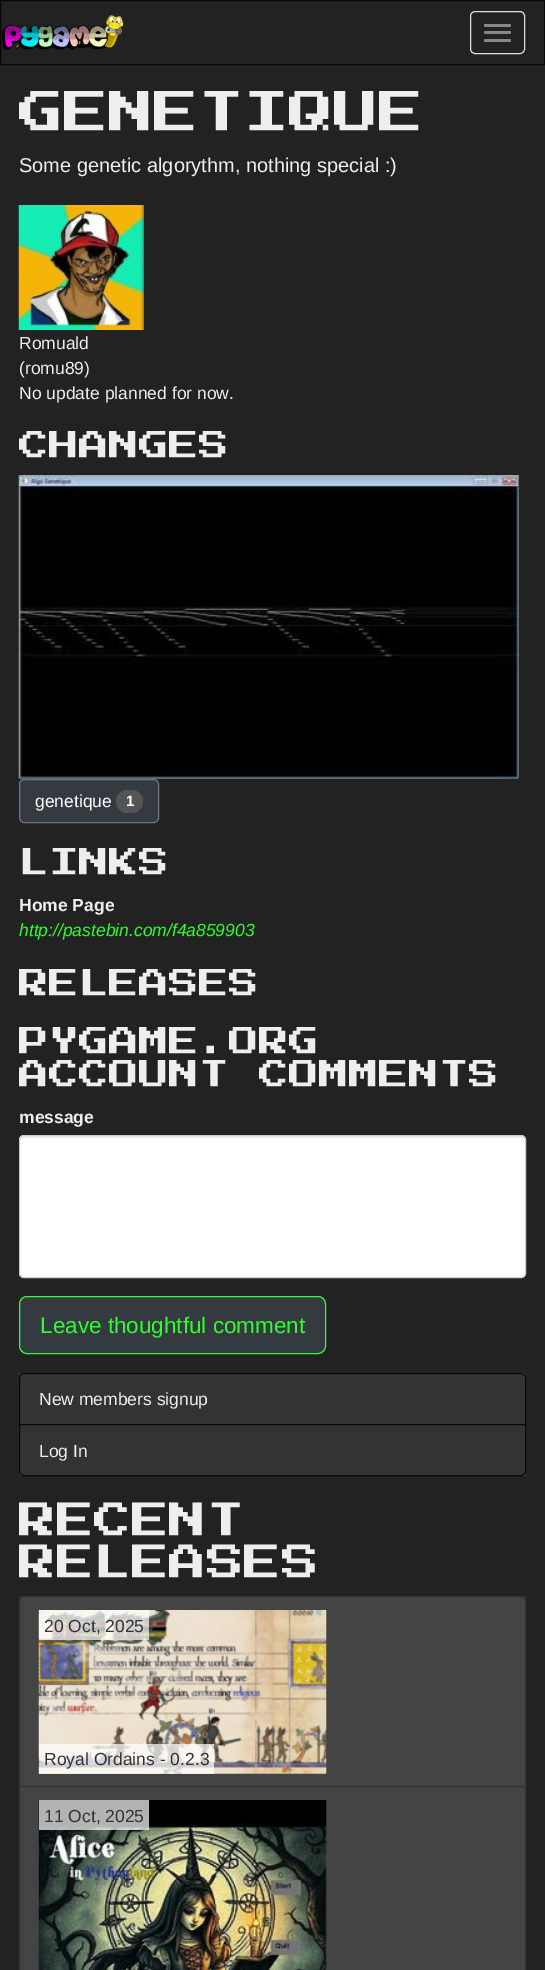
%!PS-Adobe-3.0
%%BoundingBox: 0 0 545 1970
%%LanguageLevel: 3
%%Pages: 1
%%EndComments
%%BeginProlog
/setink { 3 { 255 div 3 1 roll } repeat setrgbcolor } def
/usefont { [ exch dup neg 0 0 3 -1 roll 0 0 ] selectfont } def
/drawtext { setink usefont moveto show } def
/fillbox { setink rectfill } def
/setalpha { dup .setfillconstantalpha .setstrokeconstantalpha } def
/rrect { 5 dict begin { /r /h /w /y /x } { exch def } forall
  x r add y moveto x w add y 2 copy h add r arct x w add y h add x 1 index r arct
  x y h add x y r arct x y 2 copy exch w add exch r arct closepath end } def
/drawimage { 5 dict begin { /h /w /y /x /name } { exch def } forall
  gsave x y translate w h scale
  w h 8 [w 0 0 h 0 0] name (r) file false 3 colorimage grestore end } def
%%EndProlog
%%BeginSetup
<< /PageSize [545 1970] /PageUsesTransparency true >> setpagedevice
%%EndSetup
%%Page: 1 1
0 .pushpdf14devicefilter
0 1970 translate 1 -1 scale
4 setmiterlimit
0 0 545 1970 34 34 34 fillbox
8 8 8 setink
0.5 0.5 544 64 rectstroke
(assets/img1.rgb) 2 15 122 35 drawimage
221 221 221 setink
470.5 11.5 54 42 4.5 rrect stroke
136 136 136 setink
484 24 27 3 1.5 rrect fill
484 31 27 3 1.5 rrect fill
484 39 27 3 1.5 rrect fill
(GENETIQUE) 19 136 /PressStart2P-Regular 45 238 238 238 drawtext
(Some genetic algorythm, nothing special :\)) 19 172 /LiberationSans-Regular 20 238 238 238 drawtext
(assets/img2.rgb) 18 205 126 125 drawimage
(Romuald) 19 349 /LiberationSans-Regular 17.5 238 238 238 drawtext
(\(romu89\)) 19 374 /LiberationSans-Regular 17.5 238 238 238 drawtext
(No update planned for now.) 19 399 /LiberationSans-Regular 17.5 238 238 238 drawtext
(CHANGES) 19 461 /PressStart2P-Regular 30 238 238 238 drawtext
(assets/img3.rgb) 18 475 501 304 drawimage
52 58 64 setink
19.5 779.5 139 43 4.5 rrect gsave fill grestore
108 117 125 setink
stroke
(genetique) 35 807 /LiberationSans-Regular 17.5 255 255 255 drawtext
85 85 85 setink
116 790 27 23 11.5 rrect fill
(1) 126 806 /LiberationSans-Bold 15 255 255 255 drawtext
(LINKS) 19 878 /PressStart2P-Regular 30 238 238 238 drawtext
(Home Page) 19 911 /LiberationSans-Bold 17.5 238 238 238 drawtext
(http://pastebin.com/f4a859903) 19 936 /LiberationSans-Italic 17.5 47 253 47 drawtext
(RELEASES) 19 999 /PressStart2P-Regular 30 238 238 238 drawtext
(PYGAME.ORG) 19 1057 /PressStart2P-Regular 30 238 238 238 drawtext
(ACCOUNT COMMENTS) 19 1090 /PressStart2P-Regular 30 238 238 238 drawtext
(message) 19 1123 /LiberationSans-Bold 17.5 238 238 238 drawtext
255 255 255 setink
19 1135 507 143 5 rrect fill
236 236 236 setink
24 1138 moveto 521 1138 lineto 523 1138 525 1139 525 1141 curveto 525 1140 lineto 525 1138 523 1136 521 1136 curveto 24 1136 lineto 22 1136 20 1138 20 1140 curveto 20 1141 lineto 20 1139 22 1138 24 1138 curveto closepath fill
204 204 204 setink
19.5 1135.5 506 142 4.5 rrect stroke
52 58 64 setink
19.5 1296.5 306 57 7.5 rrect gsave fill grestore
47 253 47 setink
stroke
(Leave thoughtful comment) 40 1333 /LiberationSans-Regular 22.5 47 253 47 drawtext
19 1373 507 103 51 51 51 fillbox
8 8 8 setink
24 1373.5 moveto 521 1373.5 lineto 523.5 1373.5 525.5 1375.5 525.5 1378 curveto 525.5 1424.5 lineto 19.5 1424.5 lineto 19.5 1378 lineto 19.5 1375.5 21.5 1373.5 24 1373.5 curveto closepath stroke
(New members signup) 39 1405 /LiberationSans-Regular 17.5 238 238 238 drawtext
51 51 51 setink
19.5 1424.5 moveto 525.5 1424.5 lineto 525.5 1471 lineto 525.5 1473.5 523.5 1475.5 521 1475.5 curveto 24 1475.5 lineto 21.5 1475.5 19.5 1473.5 19.5 1471 curveto closepath gsave fill grestore
8 8 8 setink
stroke
(Log In) 39 1457 /LiberationSans-Regular 17.5 238 238 238 drawtext
(RECENT) 19 1540 /PressStart2P-Regular 37.5 238 238 238 drawtext
(RELEASES) 19 1582 /PressStart2P-Regular 37.5 238 238 238 drawtext
19 1596 507 5 51 51 51 fillbox
68 68 68 setink
24 1596.5 moveto 521 1596.5 lineto 523.5 1596.5 525.5 1598.5 525.5 1601 curveto 525.5 1787.5 lineto 19.5 1787.5 lineto 19.5 1601 lineto 19.5 1598.5 21.5 1596.5 24 1596.5 curveto closepath gsave fill grestore
51 51 51 setink
stroke
(assets/img4.rgb) 38 1610 289 164 drawimage
0.7 setalpha
39 1610 110 30 255 255 255 fillbox
1 setalpha
(20 Oct, 2025) 44 1632 /LiberationSans-Regular 17.5 51 51 51 drawtext
0.7 setalpha
39 1744 175 30 255 255 255 fillbox
1 setalpha
(Royal Ordains - 0.2.3) 44 1765 /LiberationSans-Regular 17.5 51 51 51 drawtext
68 68 68 setink
19.5 1786.5 moveto 525.5 1786.5 lineto 525.5 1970.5 lineto 19.5 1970.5 lineto closepath gsave fill grestore
51 51 51 setink
stroke
(assets/img5.rgb) 38 1800 289 170 drawimage
0.7 setalpha
39 1800 110 30 255 255 255 fillbox
1 setalpha
(11 Oct, 2025) 44 1822 /LiberationSans-Regular 17.5 51 51 51 drawtext
.poppdf14devicefilter showpage
%%EOF
